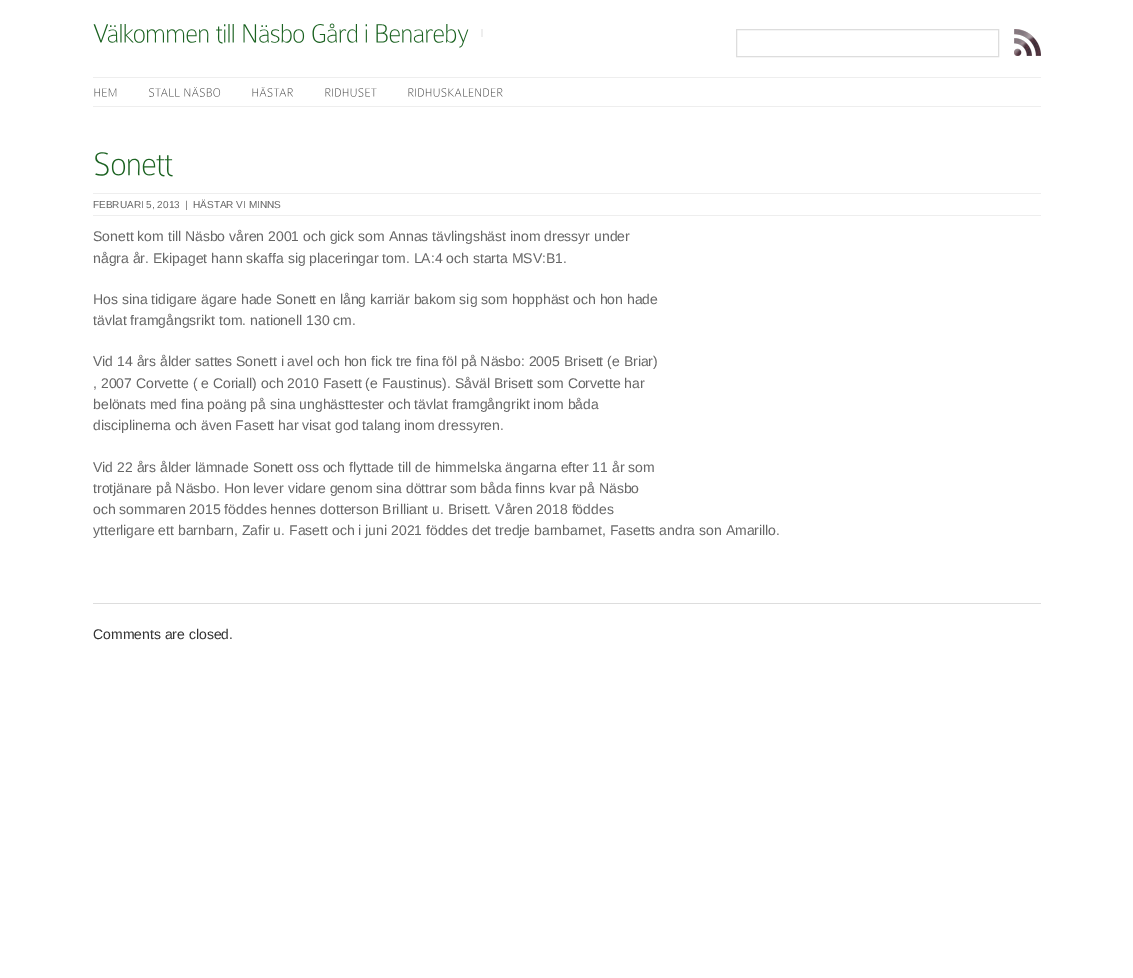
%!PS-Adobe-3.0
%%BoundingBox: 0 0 1133 978
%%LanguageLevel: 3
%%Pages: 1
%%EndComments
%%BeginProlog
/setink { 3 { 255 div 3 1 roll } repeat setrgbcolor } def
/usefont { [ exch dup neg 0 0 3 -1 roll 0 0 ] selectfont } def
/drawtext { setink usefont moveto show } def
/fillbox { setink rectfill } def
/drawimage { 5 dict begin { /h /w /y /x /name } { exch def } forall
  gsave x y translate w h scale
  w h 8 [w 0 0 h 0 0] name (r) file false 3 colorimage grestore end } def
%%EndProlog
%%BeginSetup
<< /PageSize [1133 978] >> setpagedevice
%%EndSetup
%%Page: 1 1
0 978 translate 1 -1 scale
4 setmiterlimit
0 0 1133 978 255 255 255 fillbox
(assets/img1.rgb) 93 24 116 19 drawimage
(assets/img2.rgb) 216 24 18 20 drawimage
(assets/img3.rgb) 243 24 62 19 drawimage
(assets/img4.rgb) 312 23 46 20 drawimage
(assets/img5.rgb) 365 24 2 19 drawimage
(assets/img6.rgb) 376 24 93 24 drawimage
481 29 2 8 238 238 238 fillbox
221 221 221 setink
736.5 29.5 262 27 rectstroke
(assets/img7.rgb) 1014 29 27 27 drawimage
93 77 948 1 238 238 238 fillbox
93 106 948 1 238 238 238 fillbox
(assets/img8.rgb) 94 88 23 9 drawimage
(assets/img9.rgb) 149 88 31 9 drawimage
(assets/img10.rgb) 184 87 37 10 drawimage
(assets/img11.rgb) 252 87 41 10 drawimage
(assets/img12.rgb) 325 88 52 9 drawimage
(assets/img13.rgb) 408 88 95 9 drawimage
(assets/img14.rgb) 95 152 78 25 drawimage
93 193 948 1 238 238 238 fillbox
93 215 948 1 238 238 238 fillbox
(FEBRUARI 5, 2013  |) 93 208 /LiberationSans-Regular 10 102 102 102 drawtext
(HÄSTAR VI MINNS) 193 208 /LiberationSans-Regular 10 102 102 102 drawtext
(Sonett kom till Näsbo våren 2001 och gick som Annas tävlingshäst inom dressyr under) 93 241 /LiberationSans-Regular 14 102 102 102 drawtext
(några år. Ekipaget hann skaffa sig placeringar tom. LA:4 och starta MSV:B1.) 93 263 /LiberationSans-Regular 14 102 102 102 drawtext
(Hos sina tidigare ägare hade Sonett en lång karriär bakom sig som hopphäst och hon hade) 93 304 /LiberationSans-Regular 14 102 102 102 drawtext
(tävlat framgångsrikt tom. nationell 130 cm.) 93 325 /LiberationSans-Regular 14 102 102 102 drawtext
(Vid 14 års ålder sattes Sonett i avel och hon fick tre fina föl på Näsbo: 2005 Brisett \(e Briar\)) 93 366 /LiberationSans-Regular 14 102 102 102 drawtext
(, 2007 Corvette \( e Coriall\) och 2010 Fasett \(e Faustinus\). Såväl Brisett som Corvette har) 93 388 /LiberationSans-Regular 14 102 102 102 drawtext
(belönats med fina poäng på sina unghästtester och tävlat framgångrikt inom båda) 93 409 /LiberationSans-Regular 14 102 102 102 drawtext
(disciplinerna och även Fasett har visat god talang inom dressyren.) 93 430 /LiberationSans-Regular 14 102 102 102 drawtext
(Vid 22 års ålder lämnade Sonett oss och flyttade till de himmelska ängarna efter 11 år som) 93 472 /LiberationSans-Regular 14 102 102 102 drawtext
(trotjänare på Näsbo. Hon lever vidare genom sina döttrar som båda finns kvar på Näsbo) 93 493 /LiberationSans-Regular 14 102 102 102 drawtext
(och sommaren 2015 föddes hennes dotterson Brilliant u. Brisett. Våren 2018 föddes) 93 514 /LiberationSans-Regular 14 102 102 102 drawtext
(ytterligare ett barnbarn, Zafir u. Fasett och i juni 2021 föddes det tredje barnbarnet, Fasetts andra son Amarillo.) 93 535 /LiberationSans-Regular 14 102 102 102 drawtext
93 603 948 1 221 221 221 fillbox
(Comments are closed.) 93 639 /LiberationSans-Regular 14 51 51 51 drawtext
showpage
%%EOF
